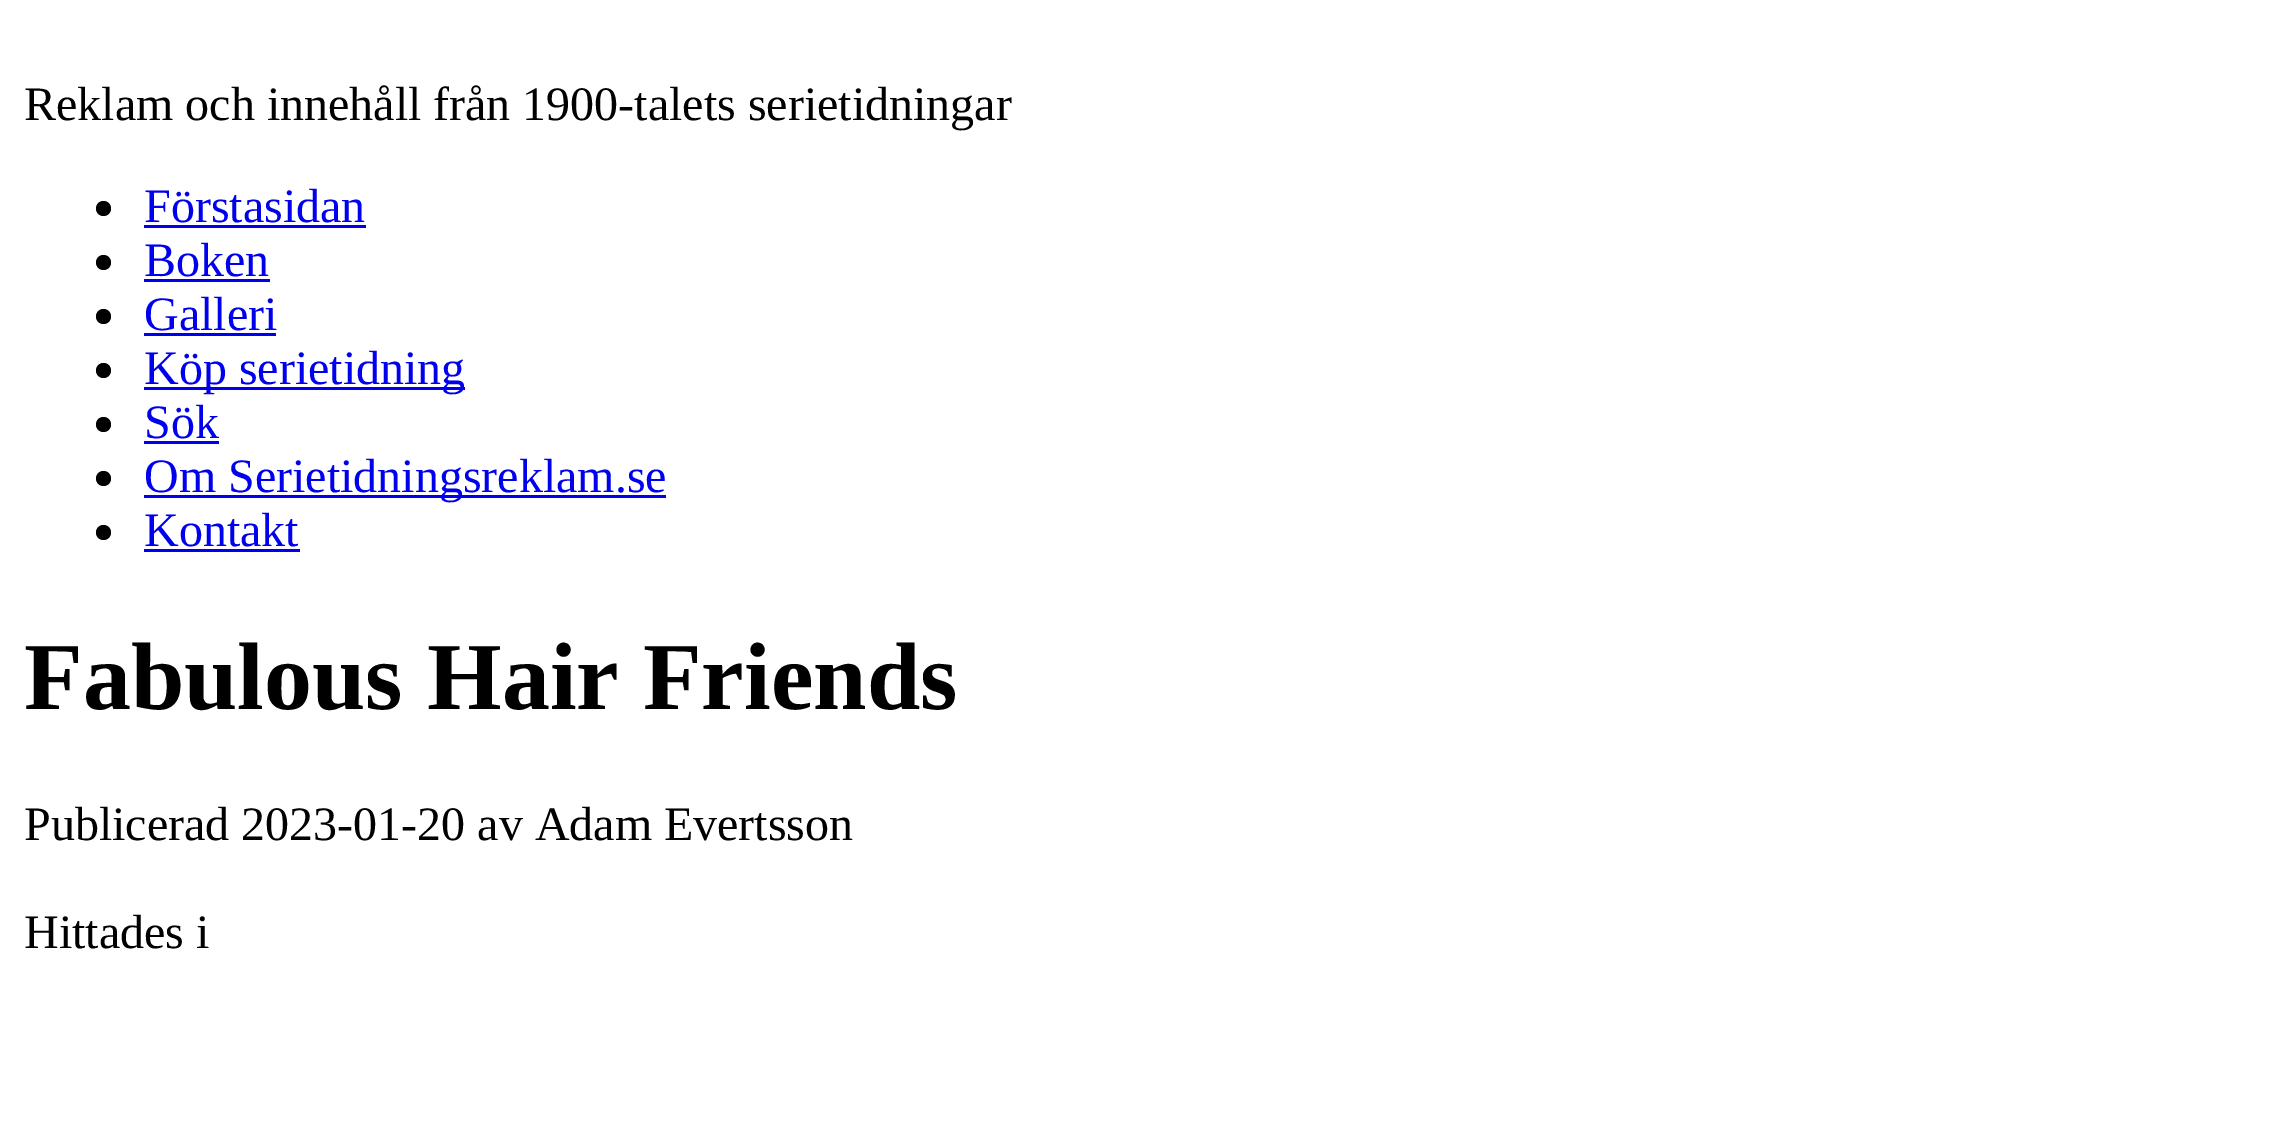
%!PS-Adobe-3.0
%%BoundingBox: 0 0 2281 1133
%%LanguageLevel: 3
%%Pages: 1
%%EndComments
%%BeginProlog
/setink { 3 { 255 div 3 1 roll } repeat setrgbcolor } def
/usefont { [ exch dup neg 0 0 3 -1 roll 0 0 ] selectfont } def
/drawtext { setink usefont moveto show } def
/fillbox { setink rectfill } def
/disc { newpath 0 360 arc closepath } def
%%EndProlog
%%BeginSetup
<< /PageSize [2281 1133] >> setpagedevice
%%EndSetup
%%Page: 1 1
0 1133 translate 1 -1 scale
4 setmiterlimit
0 0 2281 1133 255 255 255 fillbox
(Reklam och innehåll från 1900-talets serietidningar) 24 120 /LiberationSerif-Regular 48 0 0 0 drawtext
103.5 208.5 7.5 disc fill
(Förstasidan) 144 222 /LiberationSerif-Regular 48 0 0 238 drawtext
144 225 222 3 0 0 238 fillbox
0 0 0 setink
103.5 262.5 7.5 disc fill
(Boken) 144 276 /LiberationSerif-Regular 48 0 0 238 drawtext
144 279 126 3 0 0 238 fillbox
0 0 0 setink
103.5 316.5 7.5 disc fill
(Galleri) 144 330 /LiberationSerif-Regular 48 0 0 238 drawtext
144 333 132 3 0 0 238 fillbox
0 0 0 setink
103.5 370.5 7.5 disc fill
144 387 321 3 0 0 238 fillbox
(Köp serietidning) 144 384 /LiberationSerif-Regular 48 0 0 238 drawtext
0 0 0 setink
103.5 424.5 7.5 disc fill
(Sök) 144 438 /LiberationSerif-Regular 48 0 0 238 drawtext
144 441 75 3 0 0 238 fillbox
0 0 0 setink
103.5 478.5 7.5 disc fill
144 495 522 3 0 0 238 fillbox
(Om Serietidningsreklam.se) 144 492 /LiberationSerif-Regular 48 0 0 238 drawtext
0 0 0 setink
103.5 532.5 7.5 disc fill
(Kontakt) 144 546 /LiberationSerif-Regular 48 0 0 238 drawtext
144 549 156 3 0 0 238 fillbox
(Fabulous Hair Friends) 24 709 /LiberationSerif-Bold 96 0 0 0 drawtext
(Publicerad 2023-01-20 av Adam Evertsson) 24 840 /LiberationSerif-Regular 48 0 0 0 drawtext
(Hittades i) 24 948 /LiberationSerif-Regular 48 0 0 0 drawtext
showpage
%%EOF
